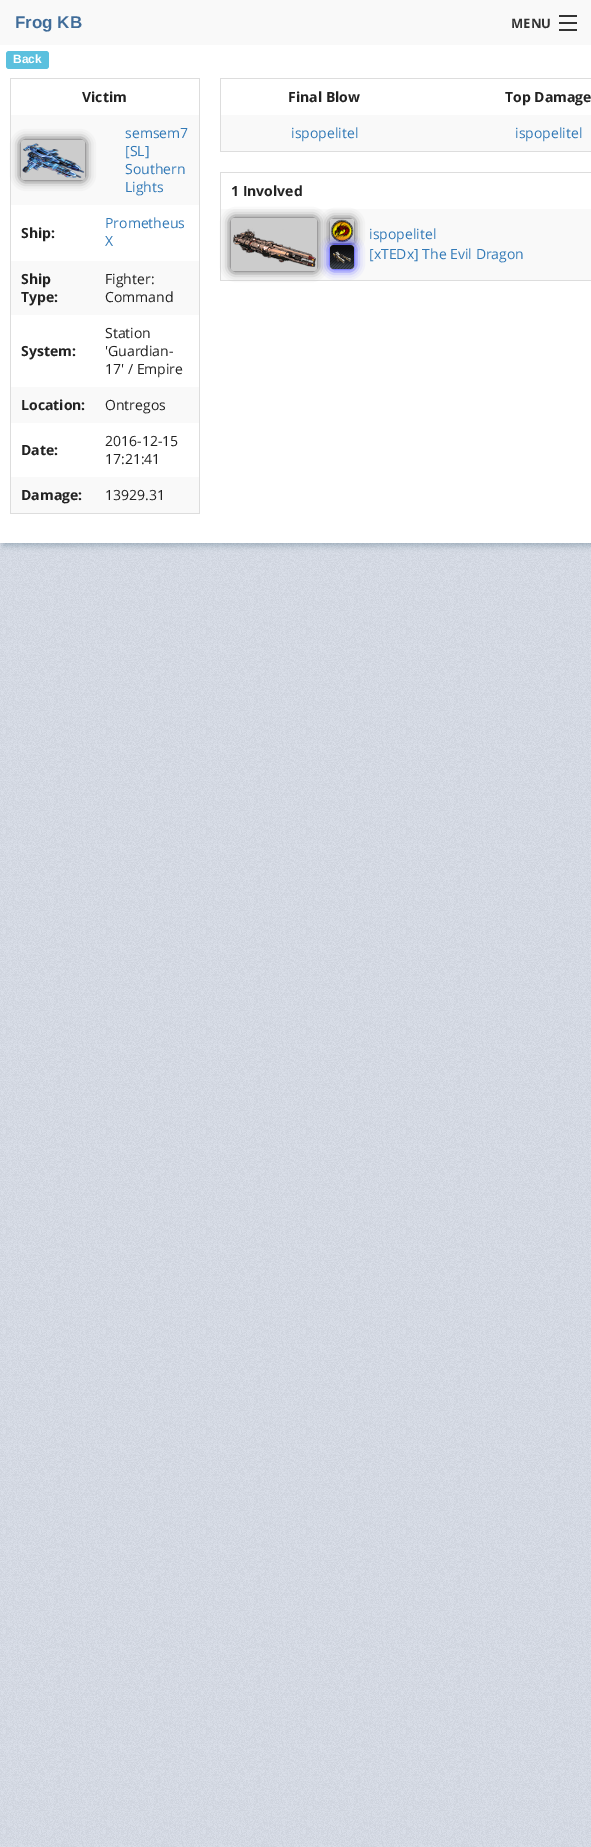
%!PS-Adobe-3.0
%%BoundingBox: 0 0 591 1847
%%LanguageLevel: 3
%%Pages: 1
%%EndComments
%%BeginProlog
/setink { 3 { 255 div 3 1 roll } repeat setrgbcolor } def
/usefont { [ exch dup neg 0 0 3 -1 roll 0 0 ] selectfont } def
/drawtext { setink usefont moveto show } def
/fillbox { setink rectfill } def
/setalpha { dup .setfillconstantalpha .setstrokeconstantalpha } def
/rrect { 5 dict begin { /r /h /w /y /x } { exch def } forall
  x r add y moveto x w add y 2 copy h add r arct x w add y h add x 1 index r arct
  x y h add x y r arct x y 2 copy exch w add exch r arct closepath end } def
/softshadow { 12 dict begin { /a /b /q /h /w /y /x } { exch def } forall gsave /was 0 def
  9 -2 -9 { dup b mul 4 div /e exch def 1 sub .425 mul 2.718 exch exp 1 add a .99 .min exch div /now exch def
    1 1 now sub 1 was sub div sub setalpha /was now def
    w h .min e 2 mul add 0 gt { x e sub y e sub w e 2 mul add h e 2 mul add
      q e add b .6 mul add w h .min 2 div e add .min 0 .max rrect fill } if } for grestore end } def
/drawimage { 5 dict begin { /h /w /y /x /name } { exch def } forall
  gsave x y translate w h scale
  w h 8 [w 0 0 h 0 0] name (r) file false 3 colorimage grestore end } def
%%EndProlog
%%BeginSetup
<< /PageSize [591 1847] /PageUsesTransparency true >> setpagedevice
%%EndSetup
%%Page: 1 1
0 .pushpdf14devicefilter
0 1847 translate 1 -1 scale
4 setmiterlimit
0 0 591 1847 216 221 232 fillbox
(assets/img1.rgb) 0 543 591 1304 drawimage
15 56 84 setink
3 48 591 498 0 3 0.25 softshadow
0 0 591 45 249 249 249 fillbox
(Frog KB) 15 28 /LiberationSans-Bold 17 64 108 153 drawtext
(MENU) 511 28 /OpenSans-Bold 13 51 51 51 drawtext
559 29 18 2 51 51 51 fillbox
559 22 18 2 51 51 51 fillbox
559 15 18 2 51 51 51 fillbox
0 45 591 498 255 255 255 fillbox
91 192 222 setink
6 51 43 18 3 rrect fill
(Back) 13 63 /LiberationSans-Bold 12 255 255 255 drawtext
10 78 190 1 221 221 221 fillbox
199 78 1 436 221 221 221 fillbox
10 513 190 1 221 221 221 fillbox
10 78 1 436 221 221 221 fillbox
(Victim) 82 102 /OpenSans-Bold 14 34 34 34 drawtext
11 115 188 90 249 249 249 fillbox
63 61 63 setink
21 140 64 40 3 5 1 softshadow
204 204 204 setink
21 140 64 40 3 rrect fill
(assets/img2.rgb) 22 143 63 35 drawimage
(semsem7) 125 138 /OpenSans-Regular 14 51 122 183 drawtext
([SL]) 125 156 /OpenSans-Regular 14 51 122 183 drawtext
(Southern) 125 174 /OpenSans-Regular 14 51 122 183 drawtext
(Lights) 125 192 /OpenSans-Regular 14 51 122 183 drawtext
(Ship:) 21 238 /OpenSans-Bold 14 34 34 34 drawtext
(Prometheus) 105 228 /OpenSans-Regular 14 51 122 183 drawtext
(X) 105 246 /OpenSans-Regular 14 51 122 183 drawtext
11 261 188 54 249 249 249 fillbox
(Ship) 21 284 /OpenSans-Bold 14 34 34 34 drawtext
(Type:) 21 302 /OpenSans-Bold 14 34 34 34 drawtext
(Fighter:) 105 284 /OpenSans-Regular 14 34 34 34 drawtext
(Command) 105 302 /OpenSans-Regular 14 34 34 34 drawtext
(System:) 21 356 /OpenSans-Bold 14 34 34 34 drawtext
(Station) 105 338 /OpenSans-Regular 14 34 34 34 drawtext
('Guardian-) 105 356 /OpenSans-Regular 14 34 34 34 drawtext
(17' / Empire) 105 374 /OpenSans-Regular 14 34 34 34 drawtext
11 387 188 36 249 249 249 fillbox
(Location:) 21 410 /OpenSans-Bold 14 34 34 34 drawtext
(Ontregos) 105 410 /OpenSans-Regular 14 34 34 34 drawtext
(Date:) 21 455 /OpenSans-Bold 14 34 34 34 drawtext
(2016-12-15) 105 446 /OpenSans-Regular 14 34 34 34 drawtext
(17:21:41) 105 464 /OpenSans-Regular 14 34 34 34 drawtext
11 477 188 36 249 249 249 fillbox
(Damage:) 21 500 /OpenSans-Bold 14 34 34 34 drawtext
(13929.31) 105 500 /OpenSans-Regular 14 34 34 34 drawtext
220 78 371 1 221 221 221 fillbox
220 151 371 1 221 221 221 fillbox
220 78 1 74 221 221 221 fillbox
(Final Blow) 288 102 /OpenSans-Bold 14 34 34 34 drawtext
(Top Damage) 505 102 /OpenSans-Bold 14 34 34 34 drawtext
221 115 370 36 249 249 249 fillbox
(ispopelitel) 291 138 /OpenSans-Regular 14 51 122 183 drawtext
(ispopelitel) 515 138 /OpenSans-Regular 14 51 122 183 drawtext
220 172 371 1 221 221 221 fillbox
220 280 371 1 221 221 221 fillbox
220 172 1 109 221 221 221 fillbox
(1 Involved) 231 196 /OpenSans-Bold 14 34 34 34 drawtext
221 209 370 71 249 249 249 fillbox
63 61 63 setink
231 218 86 53 3 5 1 softshadow
204 204 204 setink
231 218 86 53 3 rrect fill
(assets/img3.rgb) 233 228 83 39 drawimage
63 61 63 setink
330 219 24 24 3 5 1 softshadow
204 204 204 setink
330 219 24 24 3 rrect fill
(assets/img4.rgb) 330 219 24 24 drawimage
0 0 255 setink
330 245 24 24 3 5 1 softshadow
(assets/img5.rgb) 330 245 24 24 drawimage
(ispopelitel) 369 239 /OpenSans-Regular 14 51 122 183 drawtext
([xTEDx] The Evil Dragon) 369 259 /OpenSans-Regular 14 51 122 183 drawtext
.poppdf14devicefilter showpage
%%EOF
